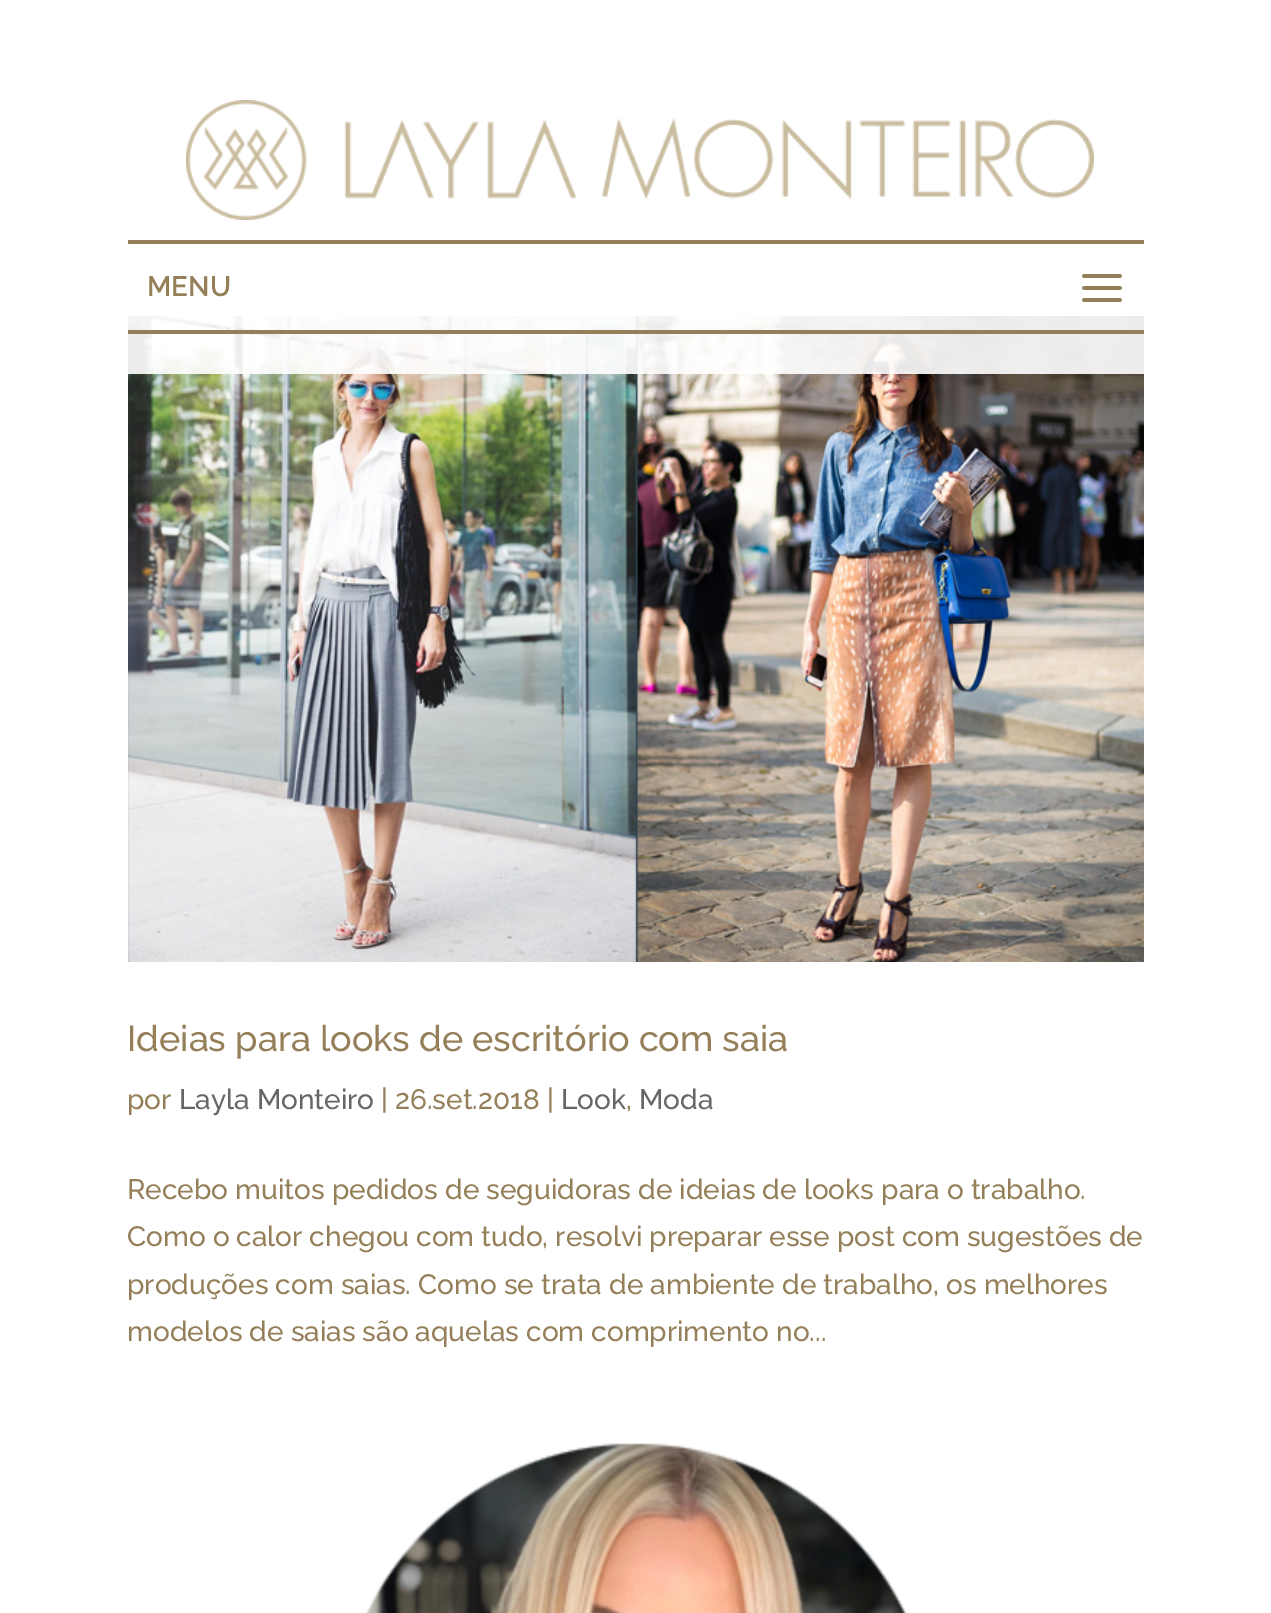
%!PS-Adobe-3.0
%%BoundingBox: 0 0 1271 1613
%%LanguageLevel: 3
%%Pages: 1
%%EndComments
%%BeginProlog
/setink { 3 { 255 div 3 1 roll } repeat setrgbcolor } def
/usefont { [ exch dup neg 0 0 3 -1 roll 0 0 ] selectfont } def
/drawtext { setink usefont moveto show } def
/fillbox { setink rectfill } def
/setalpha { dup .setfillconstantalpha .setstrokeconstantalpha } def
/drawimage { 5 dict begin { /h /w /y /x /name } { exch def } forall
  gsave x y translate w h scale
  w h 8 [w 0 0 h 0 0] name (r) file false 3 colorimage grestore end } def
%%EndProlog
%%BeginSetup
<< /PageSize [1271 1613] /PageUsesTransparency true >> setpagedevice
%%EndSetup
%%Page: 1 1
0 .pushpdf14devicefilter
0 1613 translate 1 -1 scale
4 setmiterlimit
0 0 1271 1613 255 255 255 fillbox
(assets/img3.rgb) 128 316 1016 646 drawimage
0.9 setalpha
128 316 1016 58 255 255 255 fillbox
1 setalpha
(assets/img1.rgb) 186 100 908 120 drawimage
128 240 1016 4 148 127 89 fillbox
128 330 1016 4 148 127 89 fillbox
(MENU) 147 296 /Raleway-SemiBold 28 148 127 89 drawtext
(assets/img2.rgb) 1082 274 40 28 drawimage
(Ideias para looks de escritório com saia) 127 1051 /Raleway-Medium 36 148 127 89 drawtext
(por) 127 1109 /Raleway-Medium 28 148 127 89 drawtext
(Layla Monteiro) 179 1109 /Raleway-Medium 28 102 102 102 drawtext
(| 26.set.2018 |) 381 1109 /Raleway-Medium 28 148 127 89 drawtext
(Look) 561 1109 /Raleway-Medium 28 102 102 102 drawtext
(,) 626 1109 /Raleway-Medium 28 148 127 89 drawtext
(Moda) 639 1109 /Raleway-Medium 28 102 102 102 drawtext
(Recebo muitos pedidos de seguidoras de ideias de looks para o trabalho.) 127 1199 /Raleway-Medium 28 148 127 89 drawtext
(Como o calor chegou com tudo, resolvi preparar esse post com sugestões de) 127 1246 /Raleway-Medium 28 148 127 89 drawtext
(produções com saias. Como se trata de ambiente de trabalho, os melhores) 127 1294 /Raleway-Medium 28 148 127 89 drawtext
(modelos de saias são aquelas com comprimento no...) 127 1341 /Raleway-Medium 28 148 127 89 drawtext
(assets/img4.rgb) 365 1443 542 170 drawimage
.poppdf14devicefilter showpage
%%EOF
